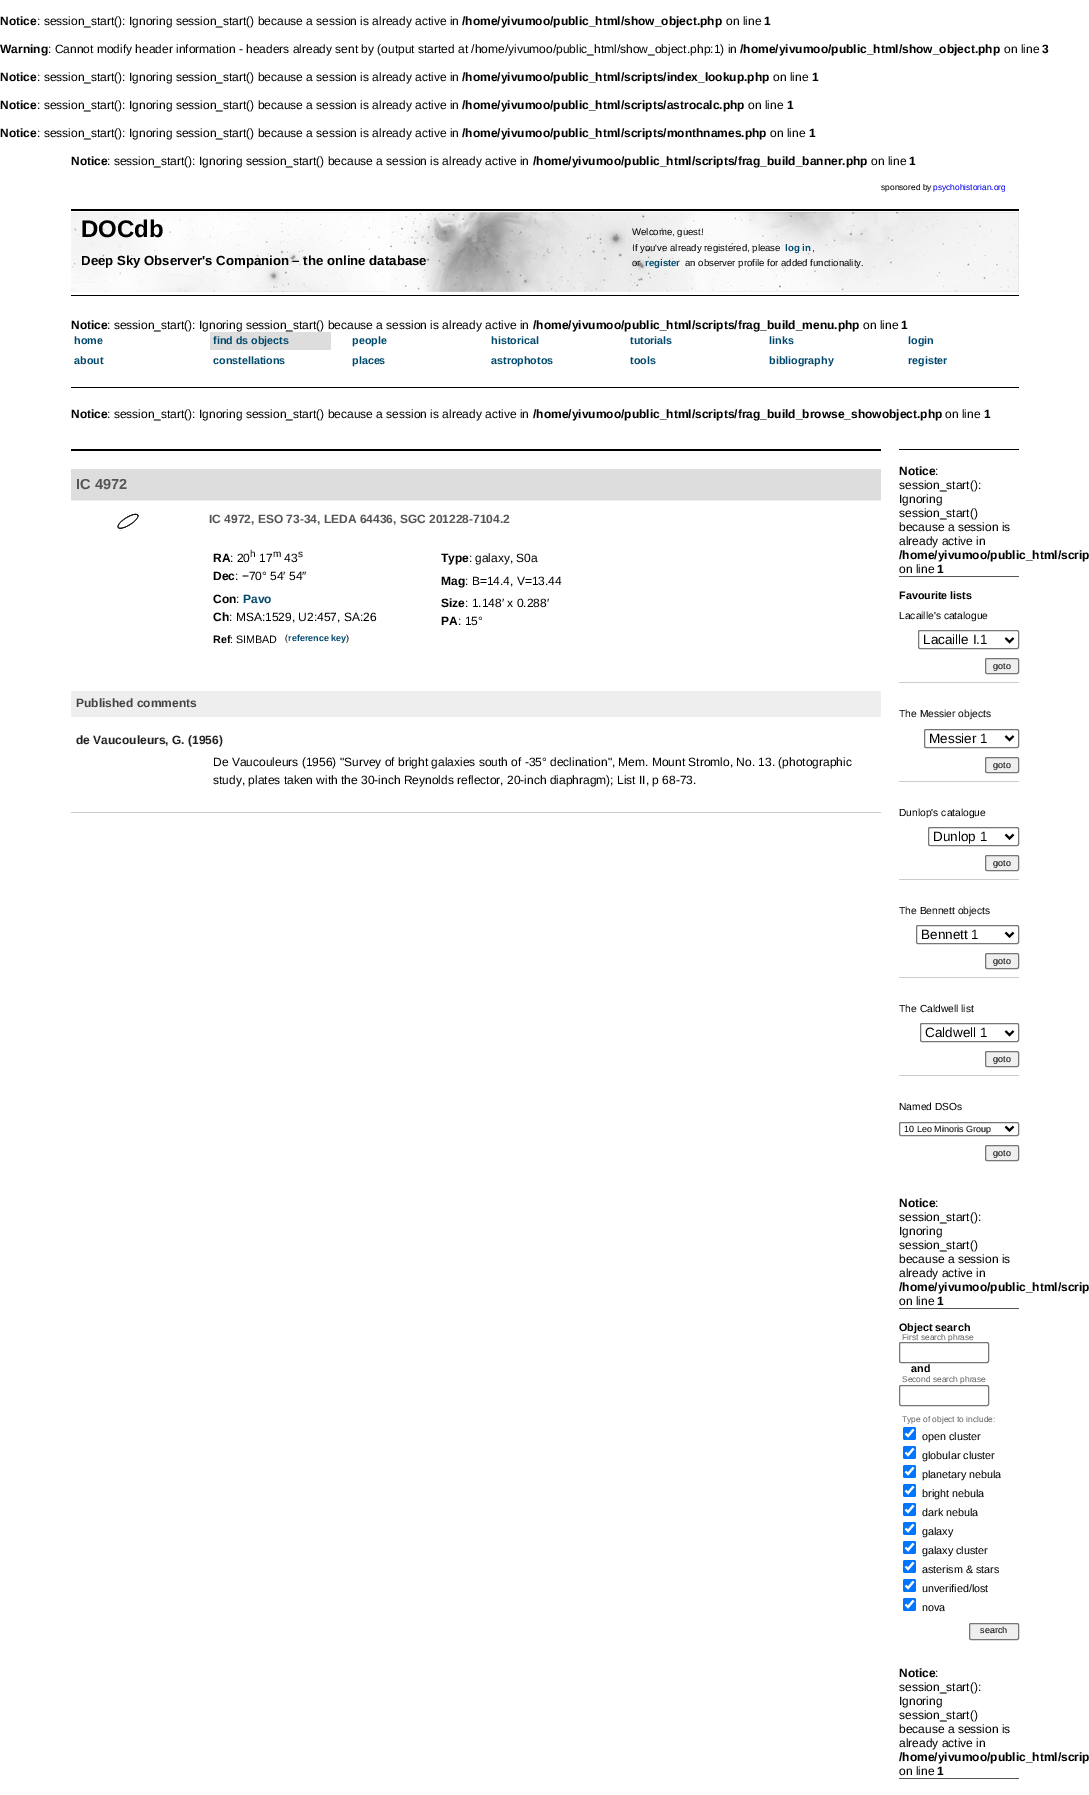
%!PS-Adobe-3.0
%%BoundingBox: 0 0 1089 1795
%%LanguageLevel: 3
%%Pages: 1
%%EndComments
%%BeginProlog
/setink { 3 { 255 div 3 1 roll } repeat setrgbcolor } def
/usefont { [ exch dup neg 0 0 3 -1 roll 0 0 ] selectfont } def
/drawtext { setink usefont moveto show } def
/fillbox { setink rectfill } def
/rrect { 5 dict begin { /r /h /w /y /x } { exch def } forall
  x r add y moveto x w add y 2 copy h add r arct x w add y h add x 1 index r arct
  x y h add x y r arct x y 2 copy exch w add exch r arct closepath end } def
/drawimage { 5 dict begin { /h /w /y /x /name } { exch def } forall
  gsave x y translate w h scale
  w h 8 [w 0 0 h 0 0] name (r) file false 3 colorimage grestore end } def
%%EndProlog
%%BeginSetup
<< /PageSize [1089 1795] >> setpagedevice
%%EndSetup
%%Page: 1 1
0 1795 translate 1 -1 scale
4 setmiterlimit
0 0 1089 1795 255 255 255 fillbox
(Notice) 0 25 /LiberationSans-Bold 12 0 0 0 drawtext
(: session_start\(\): Ignoring session_start\(\) because a session is already active in) 37 25 /LiberationSans-Regular 12 0 0 0 drawtext
(/home/yivumoo/public_html/show_object.php) 462 25 /LiberationSans-Bold 12 0 0 0 drawtext
(on line) 726 25 /LiberationSans-Regular 12 0 0 0 drawtext
(1) 764 25 /LiberationSans-Bold 12 0 0 0 drawtext
(Warning) 0 53 /LiberationSans-Bold 12 0 0 0 drawtext
(: Cannot modify header information - headers already sent by \(output started at /home/yivumoo/public_html/show_object.php:1\) in) 48 53 /LiberationSans-Regular 12 0 0 0 drawtext
(/home/yivumoo/public_html/show_object.php) 740 53 /LiberationSans-Bold 12 0 0 0 drawtext
(on line) 1004 53 /LiberationSans-Regular 12 0 0 0 drawtext
(3) 1042 53 /LiberationSans-Bold 12 0 0 0 drawtext
(Notice) 0 81 /LiberationSans-Bold 12 0 0 0 drawtext
(: session_start\(\): Ignoring session_start\(\) because a session is already active in) 37 81 /LiberationSans-Regular 12 0 0 0 drawtext
(/home/yivumoo/public_html/scripts/index_lookup.php) 462 81 /LiberationSans-Bold 12 0 0 0 drawtext
(on line) 773 81 /LiberationSans-Regular 12 0 0 0 drawtext
(1) 812 81 /LiberationSans-Bold 12 0 0 0 drawtext
(Notice) 0 109 /LiberationSans-Bold 12 0 0 0 drawtext
(: session_start\(\): Ignoring session_start\(\) because a session is already active in) 37 109 /LiberationSans-Regular 12 0 0 0 drawtext
(/home/yivumoo/public_html/scripts/astrocalc.php) 462 109 /LiberationSans-Bold 12 0 0 0 drawtext
(on line) 748 109 /LiberationSans-Regular 12 0 0 0 drawtext
(1) 787 109 /LiberationSans-Bold 12 0 0 0 drawtext
(Notice) 0 137 /LiberationSans-Bold 12 0 0 0 drawtext
(: session_start\(\): Ignoring session_start\(\) because a session is already active in) 37 137 /LiberationSans-Regular 12 0 0 0 drawtext
(/home/yivumoo/public_html/scripts/monthnames.php) 462 137 /LiberationSans-Bold 12 0 0 0 drawtext
(on line) 770 137 /LiberationSans-Regular 12 0 0 0 drawtext
(1) 809 137 /LiberationSans-Bold 12 0 0 0 drawtext
(Notice) 71 165 /LiberationSans-Bold 12 0 0 0 drawtext
(: session_start\(\): Ignoring session_start\(\) because a session is already active in) 107 165 /LiberationSans-Regular 12 0 0 0 drawtext
(/home/yivumoo/public_html/scripts/frag_build_banner.php) 533 165 /LiberationSans-Bold 12 0 0 0 drawtext
(on line) 871 165 /LiberationSans-Regular 12 0 0 0 drawtext
(1) 909 165 /LiberationSans-Bold 12 0 0 0 drawtext
71 209 948 2 0 0 0 fillbox
(sponsored by) 881 190 /LiberationSans-Regular 8.4 0 0 0 drawtext
(psychohistorian.org) 933 190 /LiberationSans-Regular 8.4 0 0 238 drawtext
(assets/img1.rgb) 71 212 948 80 drawimage
(DOCdb) 81 237 /LiberationSans-Bold 24 0 0 0 drawtext
(Deep Sky Observer's Companion – the online database) 81 265 /LiberationSans-Bold 13.2 0 0 0 drawtext
(Welcome, guest!) 632 235 /LiberationSans-Regular 9.6 0 0 0 drawtext
(If you've already registered, please) 632 251 /LiberationSans-Regular 9.6 0 0 0 drawtext
(log in) 785 251 /LiberationSans-Bold 9.6 0 73 109 drawtext
(,) 812 251 /LiberationSans-Regular 9.6 0 0 0 drawtext
(or) 632 266 /LiberationSans-Regular 9.6 0 0 0 drawtext
(register) 645 266 /LiberationSans-Bold 9.6 0 73 109 drawtext
(an observer profile for added functionality.) 685 266 /LiberationSans-Regular 9.6 0 0 0 drawtext
71 295 948 1 0 0 0 fillbox
(Notice) 71 329 /LiberationSans-Bold 12 0 0 0 drawtext
(: session_start\(\): Ignoring session_start\(\) because a session is already active in) 107 329 /LiberationSans-Regular 12 0 0 0 drawtext
(/home/yivumoo/public_html/scripts/frag_build_menu.php) 533 329 /LiberationSans-Bold 12 0 0 0 drawtext
(on line) 863 329 /LiberationSans-Regular 12 0 0 0 drawtext
(1) 901 329 /LiberationSans-Bold 12 0 0 0 drawtext
71 387 948 1 0 0 0 fillbox
(home) 74 344 /LiberationSans-Bold 10.75 0 73 109 drawtext
210 332 121 18 221 221 221 fillbox
(find ds objects) 213 344 /LiberationSans-Bold 10.75 0 73 109 drawtext
(people) 352 344 /LiberationSans-Bold 10.75 0 73 109 drawtext
(historical) 491 344 /LiberationSans-Bold 10.75 0 73 109 drawtext
(tutorials) 630 344 /LiberationSans-Bold 10.75 0 73 109 drawtext
(links) 769 344 /LiberationSans-Bold 10.75 0 73 109 drawtext
(login) 908 344 /LiberationSans-Bold 10.75 0 73 109 drawtext
(about) 74 364 /LiberationSans-Bold 10.75 0 73 109 drawtext
(constellations) 213 364 /LiberationSans-Bold 10.75 0 73 109 drawtext
(places) 352 364 /LiberationSans-Bold 10.75 0 73 109 drawtext
(astrophotos) 491 364 /LiberationSans-Bold 10.75 0 73 109 drawtext
(tools) 630 364 /LiberationSans-Bold 10.75 0 73 109 drawtext
(bibliography) 769 364 /LiberationSans-Bold 10.75 0 73 109 drawtext
(register) 908 364 /LiberationSans-Bold 10.75 0 73 109 drawtext
(Notice) 71 418 /LiberationSans-Bold 12 0 0 0 drawtext
(: session_start\(\): Ignoring session_start\(\) because a session is already active in) 107 418 /LiberationSans-Regular 12 0 0 0 drawtext
(/home/yivumoo/public_html/scripts/frag_build_browse_showobject.php) 533 418 /LiberationSans-Bold 12 0 0 0 drawtext
(on line) 945 418 /LiberationSans-Regular 12 0 0 0 drawtext
(1) 984 418 /LiberationSans-Bold 12 0 0 0 drawtext
71 449 810 2 0 0 0 fillbox
71 469 810 31 221 221 221 fillbox
71 500 810 1 238 238 238 fillbox
(IC 4972) 76 489 /LiberationSans-Bold 14.5 85 85 85 drawtext
(assets/img2.rgb) 117 513 22 18 drawimage
(IC 4972, ESO 73-34, LEDA 64436, SGC 201228-7104.2) 209 523 /LiberationSans-Bold 12 85 85 85 drawtext
(RA) 213 562 /LiberationSans-Bold 12 0 0 0 drawtext
(: 20) 230 562 /LiberationSans-Regular 12 0 0 0 drawtext
(h) 250 557 /LiberationSans-Regular 10 0 0 0 drawtext
(17) 259 562 /LiberationSans-Regular 12 0 0 0 drawtext
(m) 273 557 /LiberationSans-Regular 10 0 0 0 drawtext
(43) 284 562 /LiberationSans-Regular 12 0 0 0 drawtext
(s) 298 557 /LiberationSans-Regular 10 0 0 0 drawtext
(Dec) 213 580 /LiberationSans-Bold 12 0 0 0 drawtext
(: −70° 54′ 54″) 235 580 /LiberationSans-Regular 12 0 0 0 drawtext
(Con) 213 603 /LiberationSans-Bold 12 0 0 0 drawtext
(:) 236 603 /LiberationSans-Regular 12 0 0 0 drawtext
(Pavo) 243 603 /LiberationSans-Bold 12 0 73 109 drawtext
(Ch) 213 621 /LiberationSans-Bold 12 0 0 0 drawtext
(: MSA:1529, U2:457, SA:26) 229 621 /LiberationSans-Regular 12 0 0 0 drawtext
(Ref) 213 643 /LiberationSans-Bold 10.75 0 0 0 drawtext
(: SIMBAD) 230 643 /LiberationSans-Regular 10.75 0 0 0 drawtext
(\() 285 641 /LiberationSans-Regular 9 0 0 0 drawtext
(reference key) 288 641 /LiberationSans-Bold 9 0 73 109 drawtext
(\)) 346 641 /LiberationSans-Regular 9 0 0 0 drawtext
(Type) 441 562 /LiberationSans-Bold 12 0 0 0 drawtext
(:) 469 562 /LiberationSans-Regular 12 0 0 0 drawtext
(galaxy, S0a) 475 562 /LiberationSans-Regular 12 0 0 0 drawtext
(Mag) 441 585 /LiberationSans-Bold 12 0 0 0 drawtext
(: B=14.4, V=13.44) 465 585 /LiberationSans-Regular 12 0 0 0 drawtext
(Size) 441 607 /LiberationSans-Bold 12 0 0 0 drawtext
(: 1.148′ x 0.288′) 465 607 /LiberationSans-Regular 12 0 0 0 drawtext
(PA) 441 625 /LiberationSans-Bold 12 0 0 0 drawtext
(: 15°) 458 625 /LiberationSans-Regular 12 0 0 0 drawtext
71 691 810 26 238 238 238 fillbox
(Published comments) 76 707 /LiberationSans-Bold 12 68 68 68 drawtext
(de Vaucouleurs, G. \(1956\)) 76 744 /LiberationSans-Bold 12 34 34 34 drawtext
(De Vaucouleurs \(1956\) "Survey of bright galaxies south of -35° declination", Mem. Mount Stromlo, No. 13. \(photographic) 213 766 /LiberationSans-Regular 12 0 0 0 drawtext
(study, plates taken with the 30-inch Reynolds reflector, 20-inch diaphragm\); List II, p 68-73.) 213 784 /LiberationSans-Regular 12 0 0 0 drawtext
71 812 810 1 204 204 204 fillbox
899 449 120 1 0 0 0 fillbox
(Notice) 899 475 /LiberationSans-Bold 12 0 0 0 drawtext
(:) 935 475 /LiberationSans-Regular 12 0 0 0 drawtext
(session_start\(\):) 899 489 /LiberationSans-Regular 12 0 0 0 drawtext
(Ignoring) 899 503 /LiberationSans-Regular 12 0 0 0 drawtext
(session_start\(\)) 899 517 /LiberationSans-Regular 12 0 0 0 drawtext
(because a session is) 899 531 /LiberationSans-Regular 12 0 0 0 drawtext
(already active in) 899 545 /LiberationSans-Regular 12 0 0 0 drawtext
(/home/yivumoo/public_html/scrip) 899 559 /LiberationSans-Bold 12 0 0 0 drawtext
(on line) 899 573 /LiberationSans-Regular 12 0 0 0 drawtext
(1) 937 573 /LiberationSans-Bold 12 0 0 0 drawtext
899 576 120 1 85 85 85 fillbox
(Favourite lists) 899 599 /LiberationSans-Bold 10.75 0 0 0 drawtext
(Lacaille's catalogue) 899 619 /LiberationSans-Regular 10.25 0 0 0 drawtext
118 118 118 setink
918.5 630.5 100 18 1.5 rrect stroke
0 0 0 setink
2 setlinewidth
1005.5 638 moveto 1009.5 642 lineto 1013.5 638 lineto stroke
(Lacaille I.1) 923 644 /LiberationSans-Regular 13.5 0 0 0 drawtext
239 239 239 setink
985.5 658.5 33 15 1.5 rrect gsave fill grestore
118 118 118 setink
1 setlinewidth
stroke
(goto) 993 669 /LiberationSans-Regular 9 0 0 0 drawtext
899 682 120 1 204 204 204 fillbox
(The Messier objects) 899 717 /LiberationSans-Regular 10.25 0 0 0 drawtext
118 118 118 setink
924.5 729.5 94 18 1.5 rrect stroke
0 0 0 setink
2 setlinewidth
1005.5 736 moveto 1009.5 740 lineto 1013.5 736 lineto stroke
(Messier 1) 929 743 /LiberationSans-Regular 13.5 0 0 0 drawtext
239 239 239 setink
985.5 757.5 33 15 1.5 rrect gsave fill grestore
118 118 118 setink
1 setlinewidth
stroke
(goto) 993 768 /LiberationSans-Regular 9 0 0 0 drawtext
899 781 120 1 204 204 204 fillbox
(Dunlop's catalogue) 899 816 /LiberationSans-Regular 10.25 0 0 0 drawtext
118 118 118 setink
928.5 827.5 90 18 1.5 rrect stroke
0 0 0 setink
2 setlinewidth
1005.5 834.5 moveto 1009.5 838.5 lineto 1013.5 834.5 lineto stroke
(Dunlop 1) 933 841 /LiberationSans-Regular 13.5 0 0 0 drawtext
239 239 239 setink
985.5 855.5 33 15 1.5 rrect gsave fill grestore
118 118 118 setink
1 setlinewidth
stroke
(goto) 993 866 /LiberationSans-Regular 9 0 0 0 drawtext
899 879 120 1 204 204 204 fillbox
(The Bennett objects) 899 914 /LiberationSans-Regular 10.25 0 0 0 drawtext
118 118 118 setink
916.5 925.5 102 18 1.5 rrect stroke
0 0 0 setink
2 setlinewidth
1005.5 932.5 moveto 1009.5 936.5 lineto 1013.5 932.5 lineto stroke
(Bennett 1) 921 939 /LiberationSans-Regular 13.5 0 0 0 drawtext
239 239 239 setink
985.5 953.5 33 15 1.5 rrect gsave fill grestore
118 118 118 setink
1 setlinewidth
stroke
(goto) 993 964 /LiberationSans-Regular 9 0 0 0 drawtext
899 977 120 1 204 204 204 fillbox
(The Caldwell list) 899 1012 /LiberationSans-Regular 10.25 0 0 0 drawtext
118 118 118 setink
920.5 1023.5 98 18 1.5 rrect stroke
0 0 0 setink
2 setlinewidth
1005.5 1031 moveto 1009.5 1035 lineto 1013.5 1031 lineto stroke
(Caldwell 1) 925 1037 /LiberationSans-Regular 13.5 0 0 0 drawtext
239 239 239 setink
985.5 1051.5 33 15 1.5 rrect gsave fill grestore
118 118 118 setink
1 setlinewidth
stroke
(goto) 993 1062 /LiberationSans-Regular 9 0 0 0 drawtext
899 1075 120 1 204 204 204 fillbox
(Named DSOs) 899 1110 /LiberationSans-Regular 10.25 0 0 0 drawtext
118 118 118 setink
899.5 1122.5 119 13 1.5 rrect stroke
0 0 0 setink
2 setlinewidth
1005.5 1126.5 moveto 1009.5 1130.5 lineto 1013.5 1126.5 lineto stroke
(10 Leo Minoris Group) 904 1132 /LiberationSans-Regular 9 0 0 0 drawtext
239 239 239 setink
985.5 1145.5 33 15 1.5 rrect gsave fill grestore
118 118 118 setink
1 setlinewidth
stroke
(goto) 993 1156 /LiberationSans-Regular 9 0 0 0 drawtext
(Notice) 899 1207 /LiberationSans-Bold 12 0 0 0 drawtext
(:) 935 1207 /LiberationSans-Regular 12 0 0 0 drawtext
(session_start\(\):) 899 1221 /LiberationSans-Regular 12 0 0 0 drawtext
(Ignoring) 899 1235 /LiberationSans-Regular 12 0 0 0 drawtext
(session_start\(\)) 899 1249 /LiberationSans-Regular 12 0 0 0 drawtext
(because a session is) 899 1263 /LiberationSans-Regular 12 0 0 0 drawtext
(already active in) 899 1277 /LiberationSans-Regular 12 0 0 0 drawtext
(/home/yivumoo/public_html/scrip) 899 1291 /LiberationSans-Bold 12 0 0 0 drawtext
(on line) 899 1305 /LiberationSans-Regular 12 0 0 0 drawtext
(1) 937 1305 /LiberationSans-Bold 12 0 0 0 drawtext
899 1308 120 1 85 85 85 fillbox
(Object search) 899 1331 /LiberationSans-Bold 10.75 0 0 0 drawtext
(First search phrase) 902 1340 /LiberationSans-Regular 8.4 102 102 102 drawtext
118 118 118 setink
899.5 1342.5 89 20 1.5 rrect stroke
(and) 911 1372 /LiberationSans-Bold 10.75 0 0 0 drawtext
(Second search phrase) 902 1382 /LiberationSans-Regular 8.4 102 102 102 drawtext
118 118 118 setink
899.5 1385.5 89 20 1.5 rrect stroke
(Type of object to include:) 902 1422 /LiberationSans-Regular 8.4 102 102 102 drawtext
0 117 255 setink
903 1427 13 13 2 rrect fill
255 255 255 setink
2.1 setlinewidth
905.5 1433.5 moveto 908 1436 lineto 913.5 1429.5 lineto stroke
(open cluster) 922 1440 /LiberationSans-Regular 10.75 0 0 0 drawtext
0 117 255 setink
903 1446 13 13 2 rrect fill
255 255 255 setink
905.5 1452.5 moveto 908 1455 lineto 913.5 1448.5 lineto stroke
(globular cluster) 922 1459 /LiberationSans-Regular 10.75 0 0 0 drawtext
0 117 255 setink
903 1465 13 13 2 rrect fill
255 255 255 setink
905.5 1471.5 moveto 908 1474 lineto 913.5 1467.5 lineto stroke
(planetary nebula) 922 1478 /LiberationSans-Regular 10.75 0 0 0 drawtext
0 117 255 setink
903 1484 13 13 2 rrect fill
255 255 255 setink
905.5 1490.5 moveto 908 1493 lineto 913.5 1486.5 lineto stroke
(bright nebula) 922 1497 /LiberationSans-Regular 10.75 0 0 0 drawtext
0 117 255 setink
903 1503 13 13 2 rrect fill
255 255 255 setink
905.5 1509.5 moveto 908 1512 lineto 913.5 1505.5 lineto stroke
(dark nebula) 922 1516 /LiberationSans-Regular 10.75 0 0 0 drawtext
0 117 255 setink
903 1522 13 13 2 rrect fill
255 255 255 setink
905.5 1528.5 moveto 908 1531 lineto 913.5 1524.5 lineto stroke
(galaxy) 922 1535 /LiberationSans-Regular 10.75 0 0 0 drawtext
0 117 255 setink
903 1541 13 13 2 rrect fill
255 255 255 setink
905.5 1547.5 moveto 908 1550 lineto 913.5 1543.5 lineto stroke
(galaxy cluster) 922 1554 /LiberationSans-Regular 10.75 0 0 0 drawtext
0 117 255 setink
903 1560 13 13 2 rrect fill
255 255 255 setink
905.5 1566.5 moveto 908 1569 lineto 913.5 1562.5 lineto stroke
(asterism & stars) 922 1573 /LiberationSans-Regular 10.75 0 0 0 drawtext
0 117 255 setink
903 1579 13 13 2 rrect fill
255 255 255 setink
905.5 1585.5 moveto 908 1588 lineto 913.5 1581.5 lineto stroke
(unverified/lost) 922 1592 /LiberationSans-Regular 10.75 0 0 0 drawtext
0 117 255 setink
903 1598 13 13 2 rrect fill
255 255 255 setink
905.5 1604.5 moveto 908 1607 lineto 913.5 1600.5 lineto stroke
(nova) 922 1611 /LiberationSans-Regular 10.75 0 0 0 drawtext
239 239 239 setink
969.5 1623.5 49 16 1.5 rrect gsave fill grestore
118 118 118 setink
1 setlinewidth
stroke
(search) 980 1633 /LiberationSans-Regular 9 0 0 0 drawtext
(Notice) 899 1677 /LiberationSans-Bold 12 0 0 0 drawtext
(:) 935 1677 /LiberationSans-Regular 12 0 0 0 drawtext
(session_start\(\):) 899 1691 /LiberationSans-Regular 12 0 0 0 drawtext
(Ignoring) 899 1705 /LiberationSans-Regular 12 0 0 0 drawtext
(session_start\(\)) 899 1719 /LiberationSans-Regular 12 0 0 0 drawtext
(because a session is) 899 1733 /LiberationSans-Regular 12 0 0 0 drawtext
(already active in) 899 1747 /LiberationSans-Regular 12 0 0 0 drawtext
(/home/yivumoo/public_html/scrip) 899 1761 /LiberationSans-Bold 12 0 0 0 drawtext
(on line) 899 1775 /LiberationSans-Regular 12 0 0 0 drawtext
(1) 937 1775 /LiberationSans-Bold 12 0 0 0 drawtext
899 1778 120 1 85 85 85 fillbox
showpage
%%EOF
